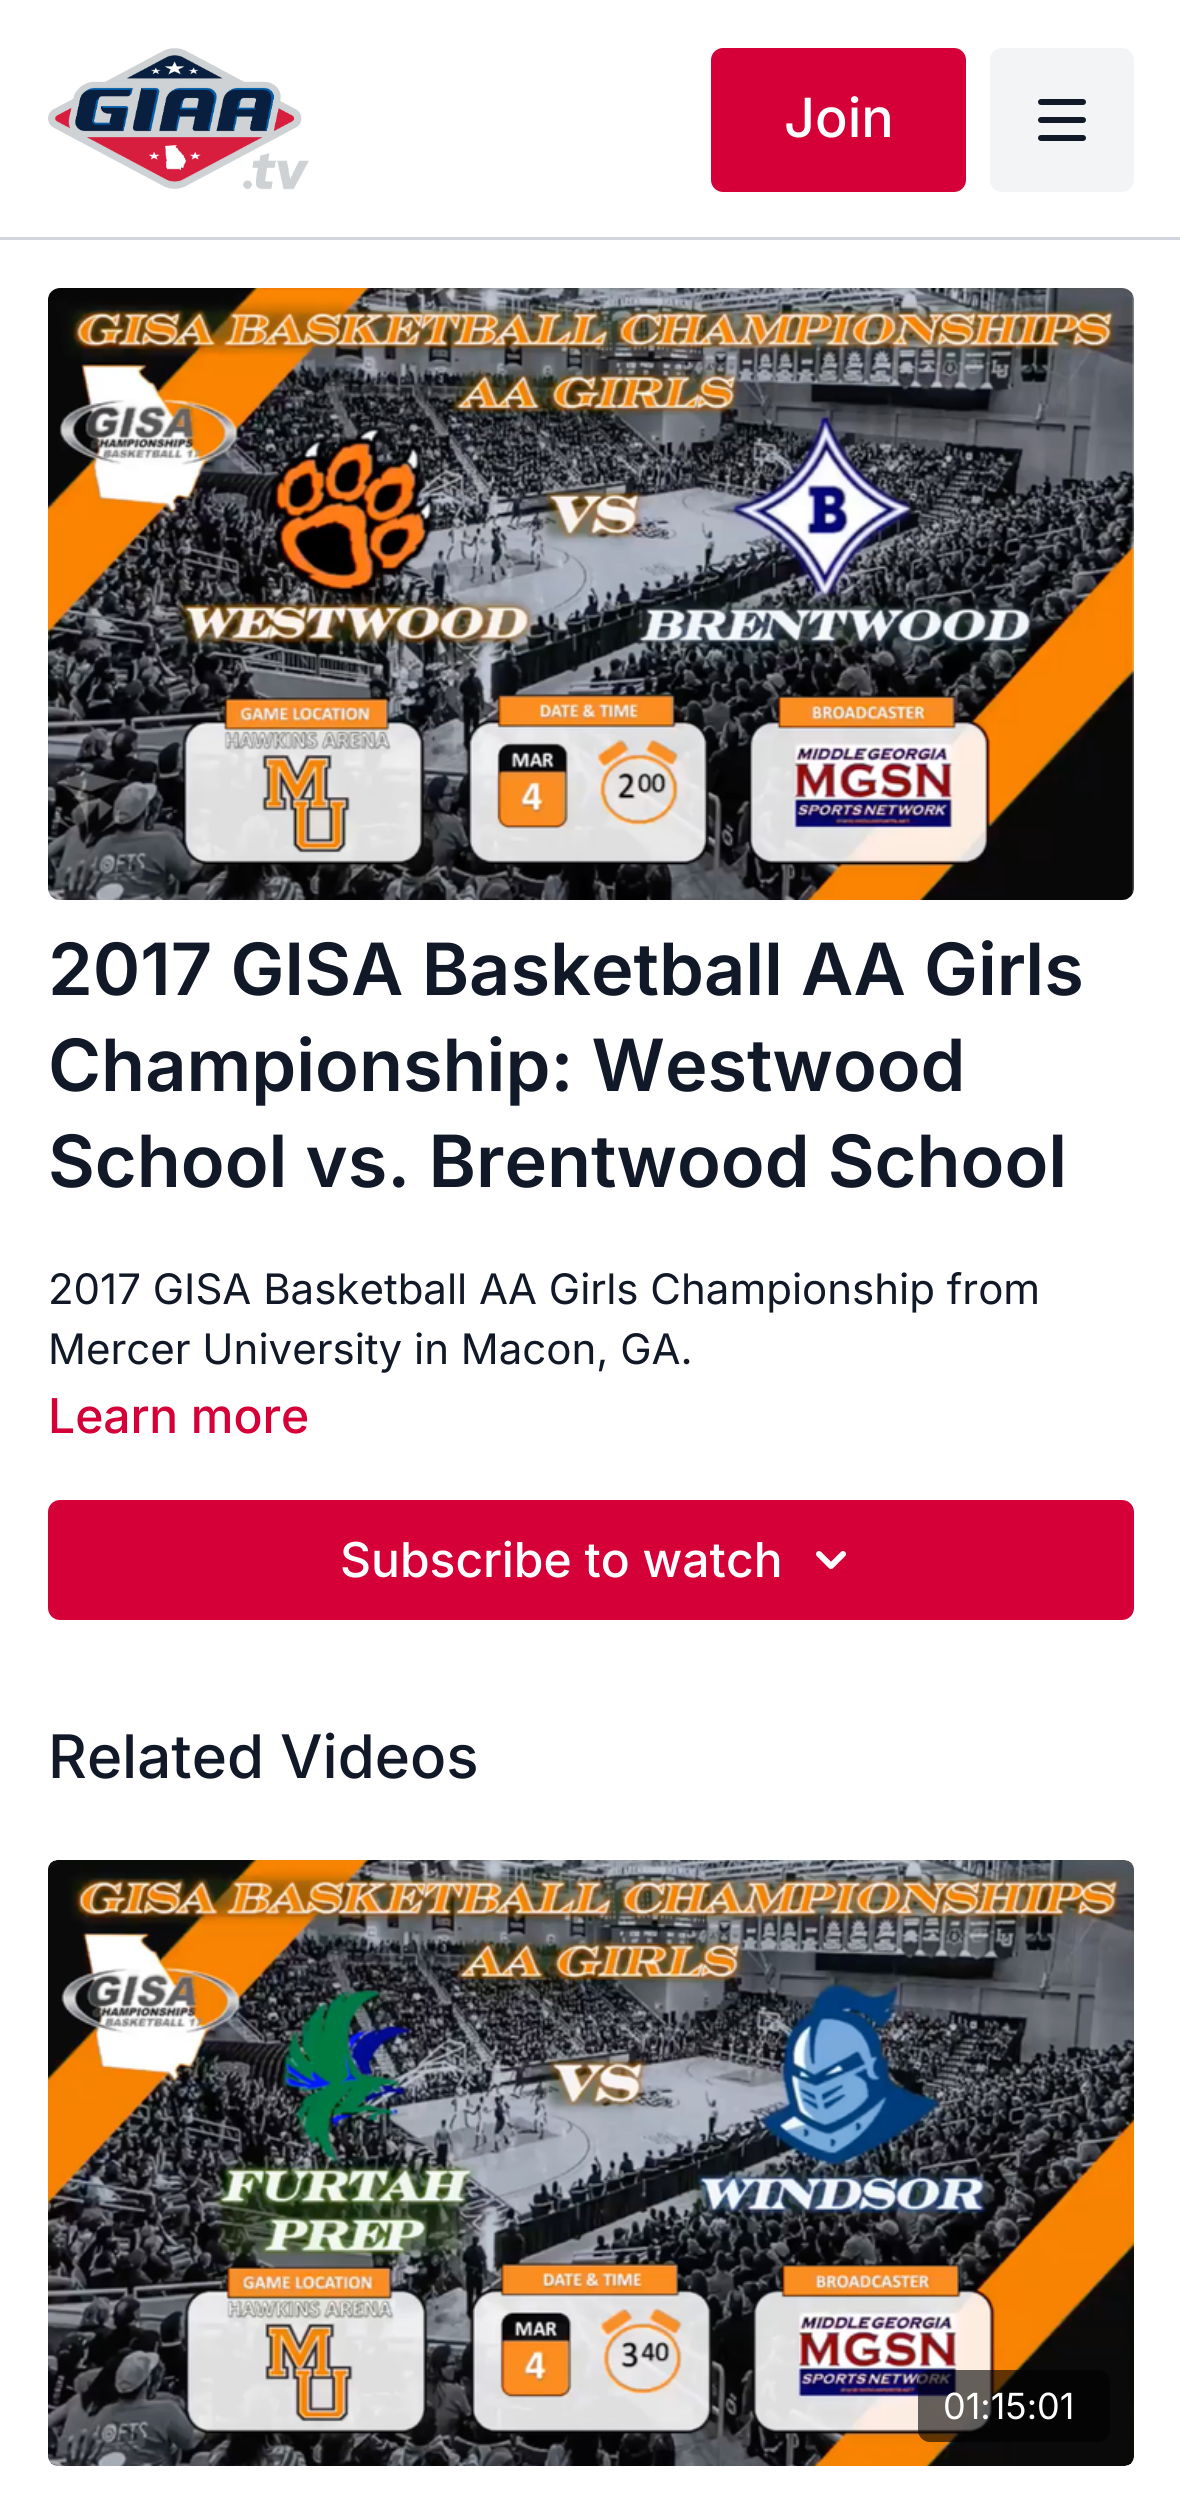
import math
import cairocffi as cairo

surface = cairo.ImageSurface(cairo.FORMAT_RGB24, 1180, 2501)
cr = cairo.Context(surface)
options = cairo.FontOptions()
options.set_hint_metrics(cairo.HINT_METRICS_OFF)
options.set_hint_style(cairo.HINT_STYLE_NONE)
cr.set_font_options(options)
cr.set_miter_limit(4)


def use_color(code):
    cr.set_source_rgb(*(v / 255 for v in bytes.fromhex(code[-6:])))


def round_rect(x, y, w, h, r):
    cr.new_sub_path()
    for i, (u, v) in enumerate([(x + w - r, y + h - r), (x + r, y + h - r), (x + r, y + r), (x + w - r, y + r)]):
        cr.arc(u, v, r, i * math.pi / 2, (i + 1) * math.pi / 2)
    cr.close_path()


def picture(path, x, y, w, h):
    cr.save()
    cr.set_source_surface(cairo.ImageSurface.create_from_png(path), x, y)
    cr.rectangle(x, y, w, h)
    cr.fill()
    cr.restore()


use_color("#ffffff")
cr.paint()
use_color("#d1d5db")
cr.rectangle(0, 237, 1180, 3)
cr.fill()
picture("img1.png", 48, 48, 261, 142)
use_color("#d50037")
round_rect(711, 48, 255, 144, 12)
cr.fill()
cr.select_font_face("Inter Medium")
cr.set_font_size(54)
use_color("#ffffff")
cr.move_to(784, 137)
cr.show_text("Join")
use_color("#f3f4f6")
round_rect(990, 48, 144, 144, 12)
cr.fill()
picture("img2.png", 1038, 99, 48, 42)
picture("img3.png", 48, 288, 1086, 612)
cr.select_font_face("Inter SemiBold")
cr.set_font_size(72)
use_color("#111827")
cr.move_to(48, 995)
cr.show_text("2017 GISA Basketball AA Girls")
cr.move_to(48, 1091)
cr.show_text("Championship: Westwood")
cr.move_to(48, 1187)
cr.show_text("School vs. Brentwood School")
cr.select_font_face("Inter")
cr.set_font_size(42)
cr.move_to(48, 1304)
cr.show_text("2017 GISA Basketball AA Girls Championship from")
cr.move_to(48, 1364)
cr.show_text("Mercer University in Macon, GA.")
cr.select_font_face("Inter Medium")
cr.set_font_size(48)
use_color("#d50037")
cr.move_to(48, 1433)
cr.show_text("Learn more")
round_rect(48, 1500, 1086, 120, 12)
cr.fill()
use_color("#ffffff")
cr.move_to(340, 1577)
cr.show_text("Subscribe to watch")
picture("img4.png", 816, 1551, 30, 18)
cr.set_font_size(60)
use_color("#111827")
cr.move_to(48, 1778)
cr.show_text("Related Videos")
picture("img5.png", 48, 1860, 1086, 606)
cr.set_source_rgba(0, 0, 0, 0.6)
round_rect(918, 2370, 192, 72, 12)
cr.fill()
cr.select_font_face("Inter")
cr.set_font_size(36)
use_color("#ffffff")
cr.move_to(943, 2419)
cr.show_text("01:15:01")
surface.write_to_png("result.png")
